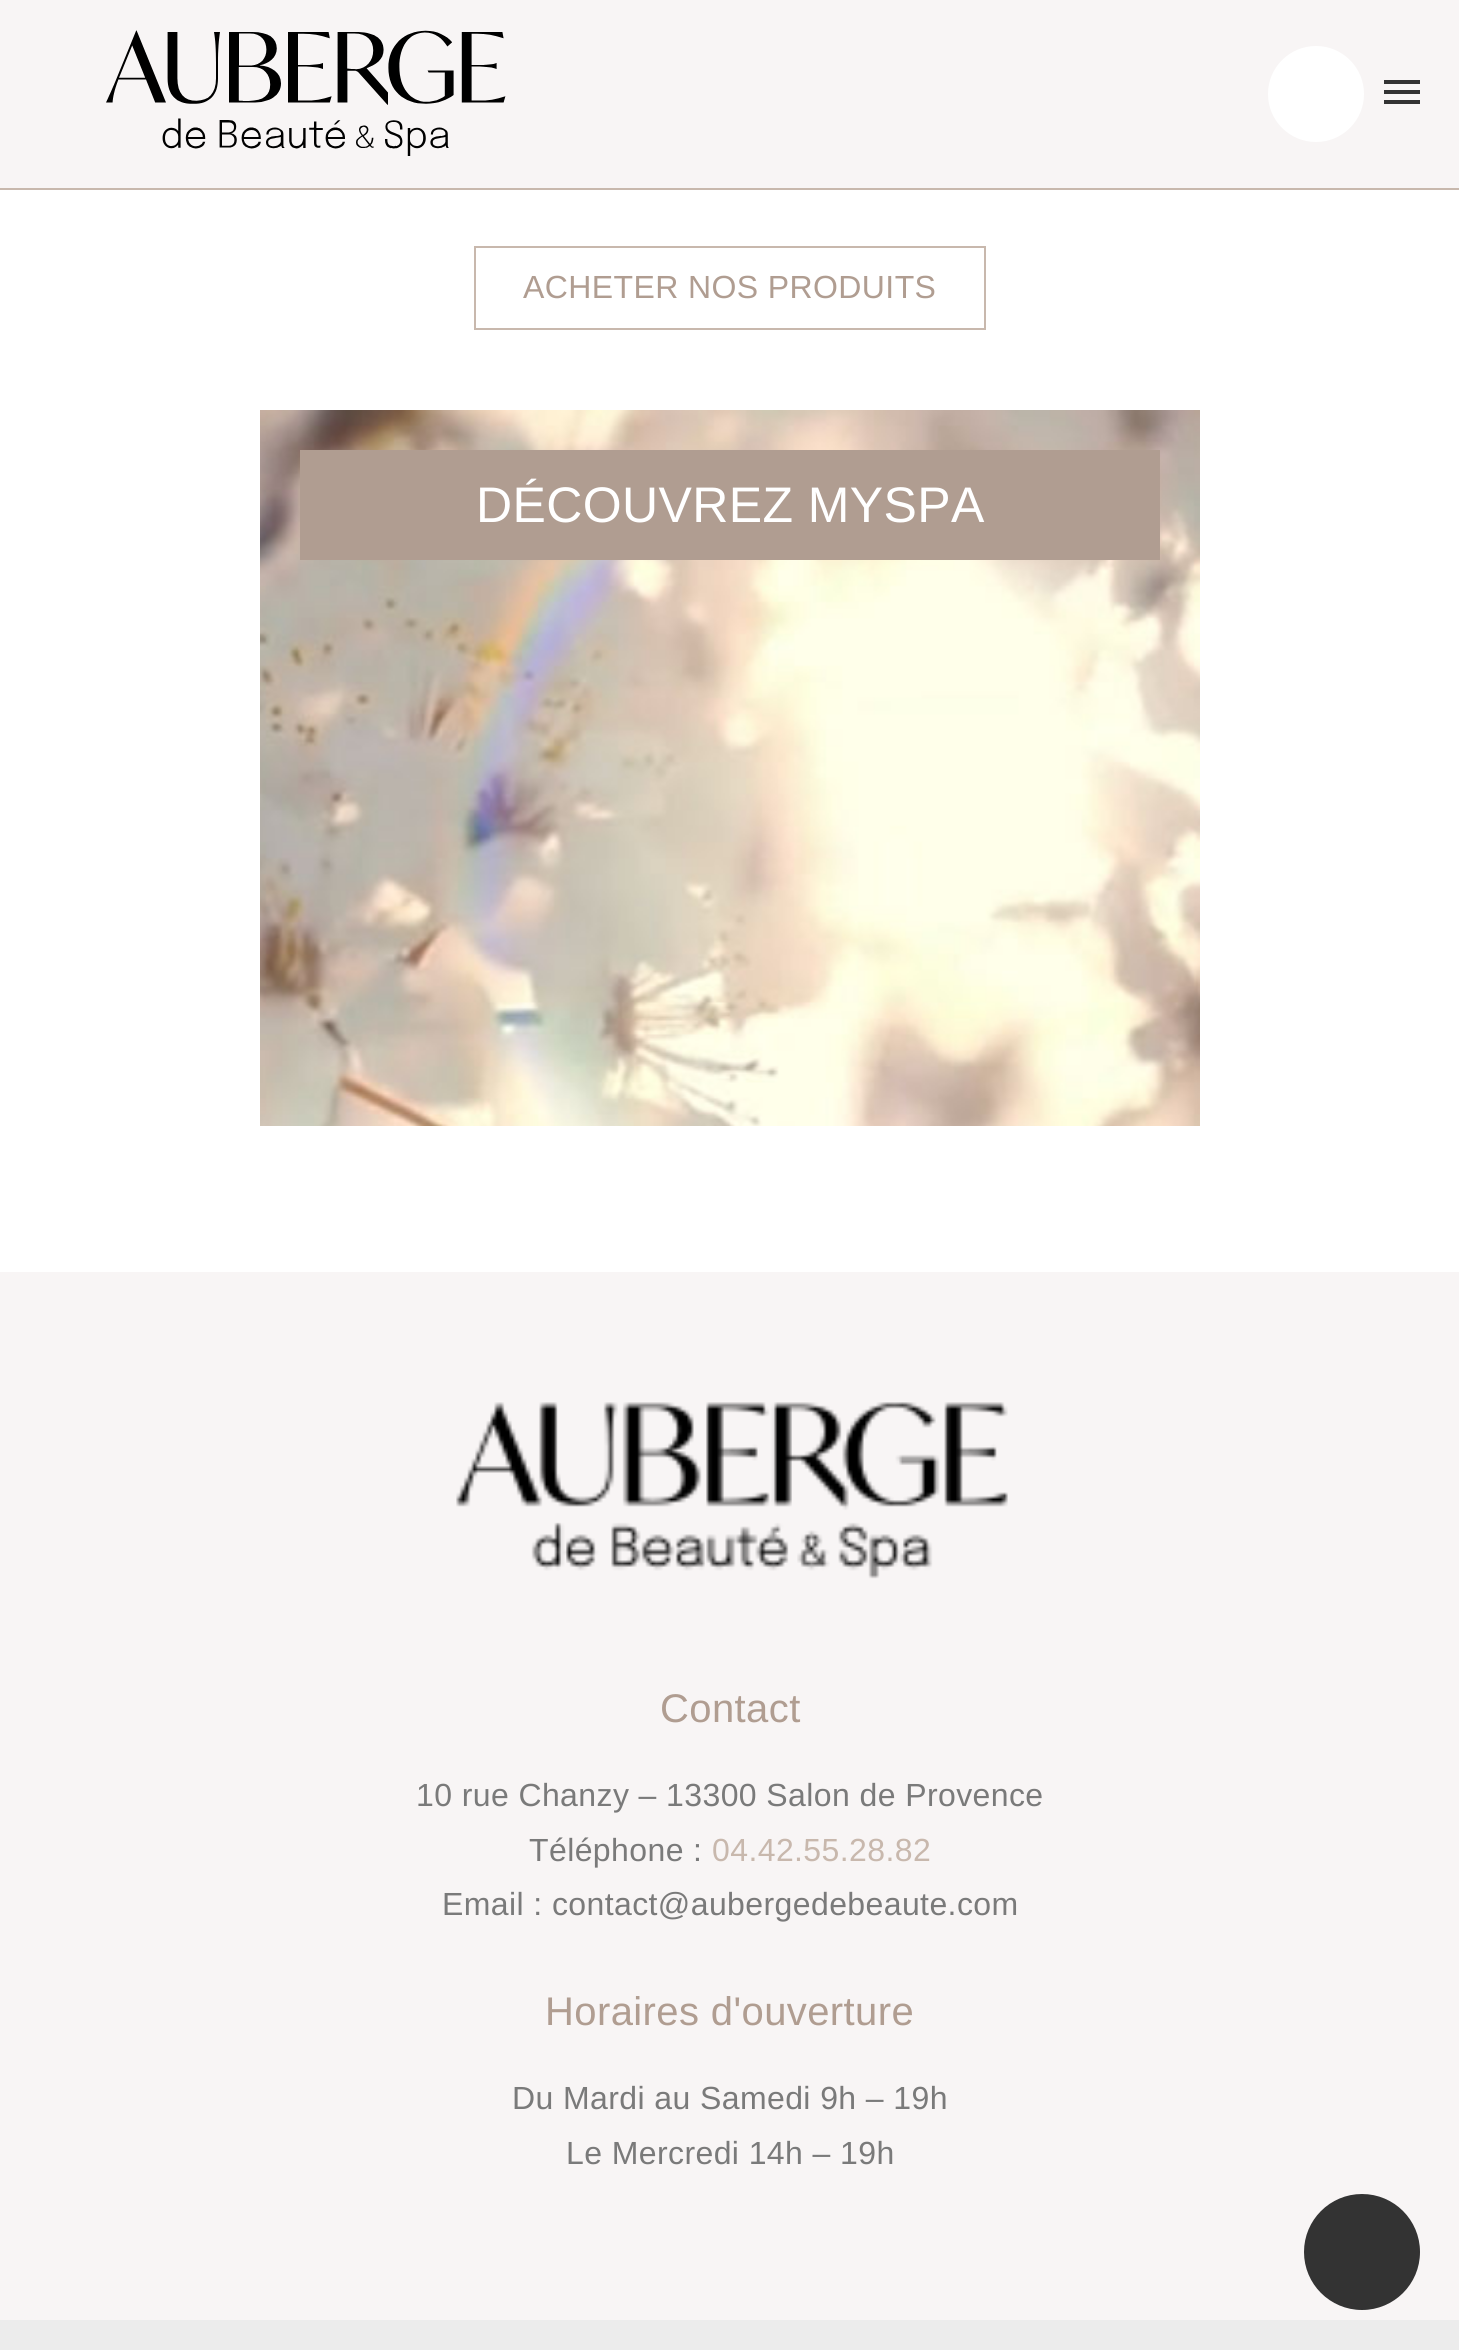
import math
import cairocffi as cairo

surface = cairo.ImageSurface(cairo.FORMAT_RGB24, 1459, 2350)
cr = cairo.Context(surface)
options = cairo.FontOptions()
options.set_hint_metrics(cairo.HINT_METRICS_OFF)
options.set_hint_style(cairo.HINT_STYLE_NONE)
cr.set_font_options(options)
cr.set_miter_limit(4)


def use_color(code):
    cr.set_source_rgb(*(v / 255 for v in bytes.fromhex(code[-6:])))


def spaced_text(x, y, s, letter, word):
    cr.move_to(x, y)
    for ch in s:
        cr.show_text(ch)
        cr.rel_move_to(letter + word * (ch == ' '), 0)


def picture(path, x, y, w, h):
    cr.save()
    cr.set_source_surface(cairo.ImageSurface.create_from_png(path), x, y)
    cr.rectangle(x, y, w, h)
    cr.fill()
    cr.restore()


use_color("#ffffff")
cr.paint()
use_color("#f8f5f5")
cr.rectangle(0, 0, 1459, 188)
cr.fill()
use_color("#c8b8ad")
cr.rectangle(0, 188, 1459, 2)
cr.fill()
picture("img1.png", 106, 30, 400, 126)
use_color("#ffffff")
cr.arc(1316, 94, 48, 0, 2 * math.pi)
cr.fill()
use_color("#333333")
cr.rectangle(1384, 80, 36, 4)
cr.fill()
cr.rectangle(1384, 90, 36, 4)
cr.fill()
cr.rectangle(1384, 100, 36, 4)
cr.fill()
use_color("#f8f5f5")
cr.rectangle(0, 1272, 1459, 1048)
cr.fill()
use_color("#333333")
cr.arc(1362, 2252, 58, 0, 2 * math.pi)
cr.fill()
cr.rectangle(475, 247, 510, 82)
use_color("#c8b8ad")
cr.stroke()
cr.select_font_face("Liberation Sans")
cr.set_font_size(32)
use_color("#b09d91")
spaced_text(523, 298, "ACHETER NOS PRODUITS", 0.4, 0)
picture("img2.png", 260, 410, 940, 716)
cr.rectangle(300, 450, 860, 110)
cr.fill()
cr.set_font_size(50)
use_color("#ffffff")
spaced_text(476, 522, "DÉCOUVREZ MYSPA", 0.4, 0)
picture("img3.png", 456, 1402, 552, 177)
cr.set_font_size(40)
use_color("#b09d91")
spaced_text(660, 1722, "Contact", 0.4, 0)
cr.set_font_size(32)
use_color("#7a7a7a")
spaced_text(416, 1806, "10 rue Chanzy – 13300 Salon de Provence", 0.4, 0)
spaced_text(529, 1861, "Téléphone :", 0.4, 0)
use_color("#c8b8ad")
spaced_text(712, 1861, "04.42.55.28.82", 0.4, 0)
use_color("#7a7a7a")
spaced_text(442, 1915, "Email : contact@aubergedebeaute.com", 0.4, 0)
cr.set_font_size(40)
use_color("#b09d91")
spaced_text(545, 2025, "Horaires d'ouverture", 0.4, 0)
cr.set_font_size(32)
use_color("#7a7a7a")
spaced_text(512, 2109, "Du Mardi au Samedi 9h – 19h", 0.4, 0)
spaced_text(566, 2164, "Le Mercredi 14h – 19h", 0.4, 0)
use_color("#ececec")
cr.rectangle(0, 2320, 1459, 30)
cr.fill()
surface.write_to_png("result.png")
